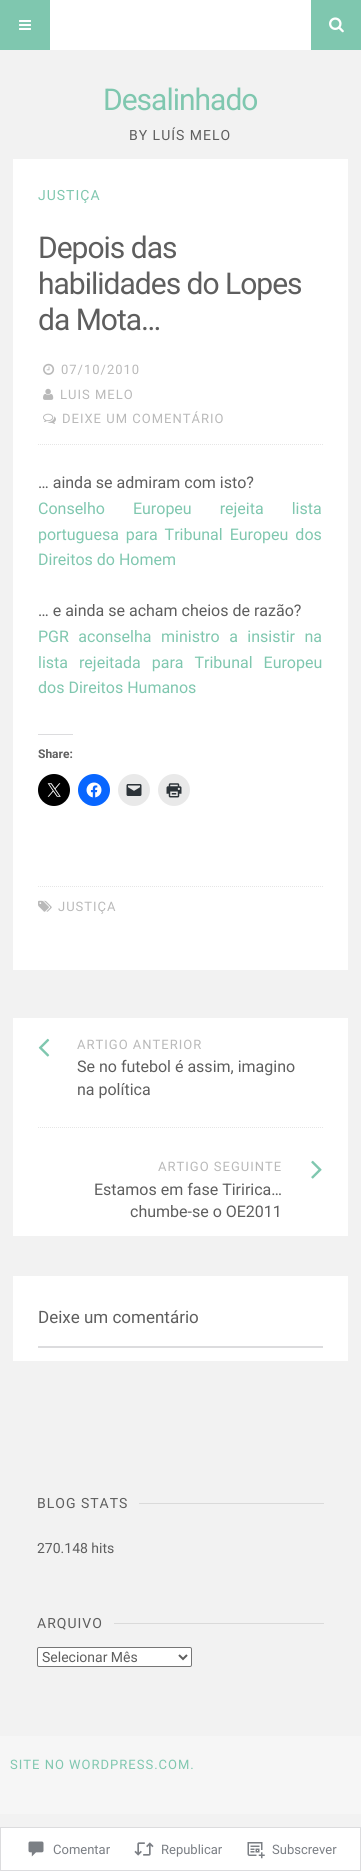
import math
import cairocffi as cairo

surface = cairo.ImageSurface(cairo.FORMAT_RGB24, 361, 1871)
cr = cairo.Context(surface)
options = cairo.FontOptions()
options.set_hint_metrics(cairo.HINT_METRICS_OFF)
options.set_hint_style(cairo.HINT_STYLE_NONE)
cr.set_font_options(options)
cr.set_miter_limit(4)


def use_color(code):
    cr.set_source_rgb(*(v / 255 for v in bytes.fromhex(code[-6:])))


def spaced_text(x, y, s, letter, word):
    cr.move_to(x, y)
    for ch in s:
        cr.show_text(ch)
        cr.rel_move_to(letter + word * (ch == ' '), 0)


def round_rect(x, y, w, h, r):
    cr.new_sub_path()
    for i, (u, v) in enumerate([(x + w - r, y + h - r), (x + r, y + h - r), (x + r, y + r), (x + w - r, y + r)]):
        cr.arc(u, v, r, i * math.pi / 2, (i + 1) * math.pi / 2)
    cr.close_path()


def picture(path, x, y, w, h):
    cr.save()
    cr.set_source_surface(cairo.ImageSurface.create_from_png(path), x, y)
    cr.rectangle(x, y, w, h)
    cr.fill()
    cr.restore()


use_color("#f2f2f2")
cr.paint()
use_color("#ffffff")
cr.rectangle(50, 0, 261, 50)
cr.fill()
use_color("#7fc7af")
cr.rectangle(0, 0, 50, 50)
cr.fill()
picture("img1.png", 19, 20, 12, 10)
cr.rectangle(311, 0, 50, 50)
cr.fill()
picture("img2.png", 329, 17, 15, 16)
cr.select_font_face("Roboto")
cr.set_font_size(30)
spaced_text(103, 110, "Desalinhado", -1, 0)
cr.set_font_size(14)
use_color("#5e5e5e")
spaced_text(129, 140, "BY LUÍS MELO", 1, 0)
use_color("#ffffff")
cr.rectangle(13, 159, 335, 811)
cr.fill()
use_color("#7fc7af")
spaced_text(38, 200, "JUSTIÇA", 1, 0)
cr.set_font_size(30)
use_color("#5e5e5e")
spaced_text(38, 258, "Depois das", -1, 0)
spaced_text(38, 294, "habilidades do Lopes", -1, 0)
spaced_text(38, 330, "da Mota…", -1, 0)
cr.new_path()
cr.move_to(38, 444.5)
cr.line_to(323, 444.5)
use_color("#e6e6e6")
cr.set_line_width(1)
cr.set_dash([1, 1])
cr.stroke()
picture("img3.png", 43, 363, 12, 12)
cr.set_font_size(13)
use_color("#b9b9b9")
spaced_text(61, 374, "07/10/2010", 1, 0)
picture("img4.png", 43, 388, 11, 12)
spaced_text(60, 399, "LUIS MELO", 1, 0)
picture("img5.png", 43, 413, 13, 11)
spaced_text(62, 423, "DEIXE UM COMENTÁRIO", 1, 0)
cr.set_font_size(16)
use_color("#5e5e5e")
cr.move_to(38, 488)
cr.show_text("… ainda se admiram com isto?")
use_color("#7fc7af")
spaced_text(38, 514, "Conselho Europeu rejeita lista", 0, 24)
spaced_text(38, 540, "portuguesa para Tribunal Europeu dos", 0, 3)
cr.move_to(38, 565)
cr.show_text("Direitos do Homem")
use_color("#5e5e5e")
cr.move_to(38, 616)
cr.show_text("… e ainda se acham cheios de razão?")
use_color("#7fc7af")
spaced_text(38, 642, "PGR aconselha ministro a insistir na", 0, 5.5)
spaced_text(38, 668, "lista rejeitada para Tribunal Europeu", 0, 7)
cr.move_to(38, 693)
cr.show_text("dos Direitos Humanos")
use_color("#dcdcde")
cr.rectangle(38, 734, 35, 1)
cr.fill()
cr.select_font_face("Roboto", cairo.FONT_SLANT_NORMAL, cairo.FONT_WEIGHT_BOLD)
cr.set_font_size(12)
use_color("#5e5e5e")
cr.move_to(38, 758)
cr.show_text("Share:")
use_color("#000000")
cr.new_path()
cr.arc(54, 790, 16, 0, 2 * math.pi)
cr.fill()
picture("img6.png", 47, 783, 14, 14)
use_color("#0866ff")
cr.arc(94, 790, 16, 0, 2 * math.pi)
cr.fill()
picture("img7.png", 86, 782, 16, 16)
use_color("#e9e9e9")
cr.arc(134, 790, 16, 0, 2 * math.pi)
cr.fill()
picture("img8.png", 126, 784, 16, 12)
cr.arc(174, 790, 16, 0, 2 * math.pi)
cr.fill()
picture("img9.png", 166, 783, 16, 15)
cr.new_path()
cr.move_to(38, 886.5)
cr.line_to(323, 886.5)
use_color("#e6e6e6")
cr.stroke()
picture("img10.png", 38, 900, 14, 12)
cr.select_font_face("Roboto")
cr.set_font_size(13)
use_color("#b9b9b9")
spaced_text(58, 911, "JUSTIÇA", 1, 0)
use_color("#ffffff")
cr.rectangle(13, 1018, 335, 218)
cr.fill()
picture("img11.png", 38, 1038, 12, 19)
use_color("#b9b9b9")
spaced_text(77, 1049, "ARTIGO ANTERIOR", 1, 0)
cr.set_font_size(16)
use_color("#5e5e5e")
cr.move_to(77, 1072)
cr.show_text("Se no futebol é assim, imagino")
cr.move_to(77, 1095)
cr.show_text("na política")
cr.new_path()
cr.move_to(38, 1127.5)
cr.line_to(323, 1127.5)
use_color("#e6e6e6")
cr.stroke()
cr.set_font_size(13)
use_color("#b9b9b9")
spaced_text(158, 1171, "ARTIGO SEGUINTE", 1, 0)
cr.set_font_size(16)
use_color("#5e5e5e")
cr.move_to(94, 1195)
cr.show_text("Estamos em fase Tiririca…")
cr.move_to(130, 1217)
cr.show_text("chumbe-se o OE2011")
picture("img12.png", 311, 1160, 11, 19)
use_color("#ffffff")
cr.rectangle(13, 1276, 335, 85)
cr.fill()
cr.set_font_size(17)
use_color("#5e5e5e")
cr.move_to(38, 1323)
cr.show_text("Deixe um comentário")
use_color("#dcdcde")
cr.rectangle(38, 1346, 285, 2)
cr.fill()
cr.set_font_size(14)
use_color("#5e5e5e")
spaced_text(37, 1508, "BLOG STATS", 1, 0)
use_color("#dadada")
cr.rectangle(139, 1503, 185, 1)
cr.fill()
use_color("#5e5e5e")
cr.move_to(37, 1553)
cr.show_text("270.148 hits")
spaced_text(37, 1628, "ARQUIVO", 1, 0)
use_color("#dadada")
cr.rectangle(114, 1623, 210, 1)
cr.fill()
use_color("#ffffff")
round_rect(37.5, 1647.5, 154, 19, 1.5)
cr.fill_preserve()
use_color("#767676")
cr.set_dash([])
cr.stroke()
cr.new_path()
cr.move_to(179, 1655)
cr.line_to(183, 1659)
cr.line_to(187, 1655)
use_color("#5e5e5e")
cr.set_line_width(2)
cr.stroke()
cr.move_to(42, 1662)
cr.show_text("Selecionar Mês")
use_color("#f6f6f6")
cr.rectangle(0, 1736, 361, 78)
cr.fill()
cr.set_font_size(13)
use_color("#7fc7af")
spaced_text(10, 1769, "SITE NO WORDPRESS.COM.", 1, 0)
use_color("#ffffff")
cr.rectangle(0.5, 1827.5, 360, 43)
cr.fill_preserve()
use_color("#dcdcde")
cr.set_line_width(1)
cr.stroke()
picture("img13.png", 28, 1841, 16, 16)
use_color("#7a7e84")
cr.move_to(53, 1854)
cr.show_text("Comentar")
picture("img14.png", 134, 1842, 20, 14)
cr.move_to(161, 1854)
cr.show_text("Republicar")
picture("img15.png", 247, 1842, 18, 17)
cr.move_to(272, 1854)
cr.show_text("Subscrever")
surface.write_to_png("result.png")
